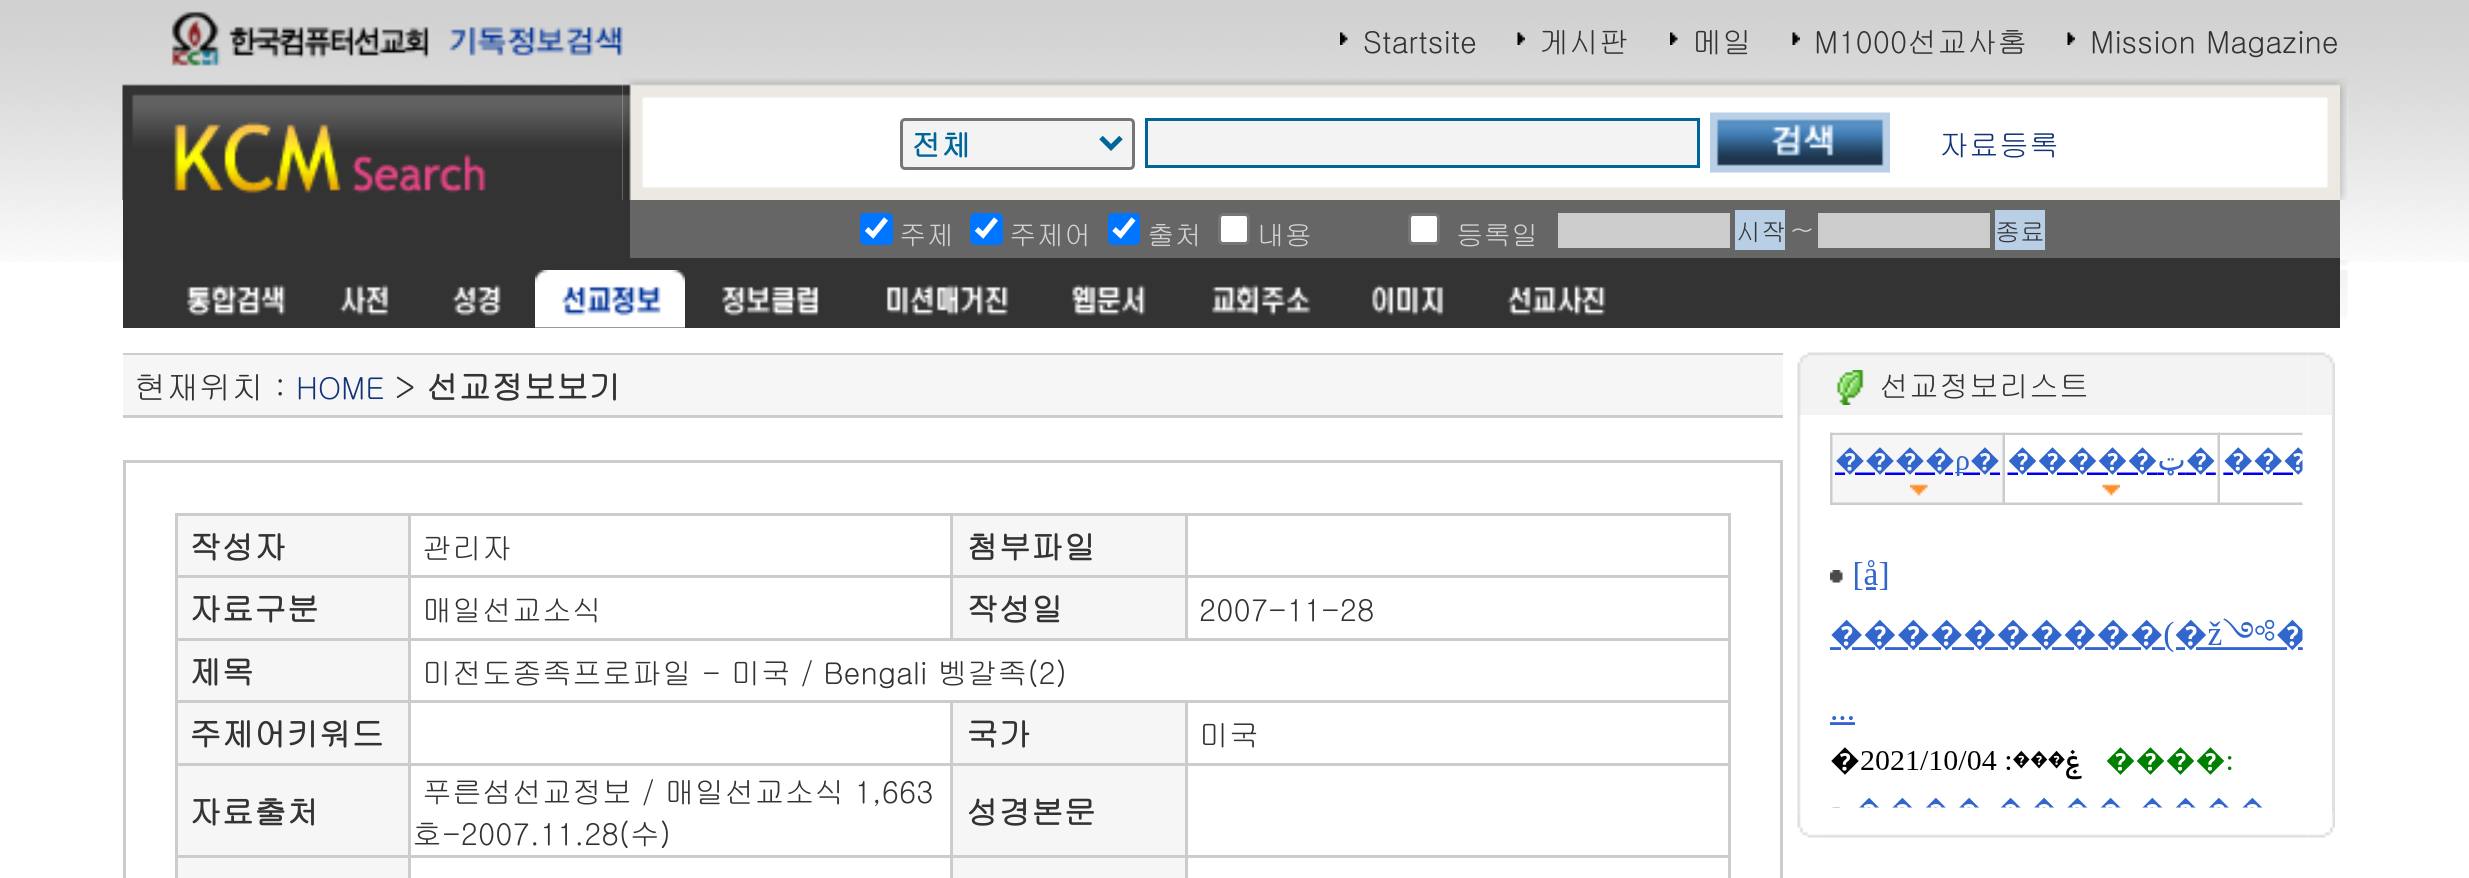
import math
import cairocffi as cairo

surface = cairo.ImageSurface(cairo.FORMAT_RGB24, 2469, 878)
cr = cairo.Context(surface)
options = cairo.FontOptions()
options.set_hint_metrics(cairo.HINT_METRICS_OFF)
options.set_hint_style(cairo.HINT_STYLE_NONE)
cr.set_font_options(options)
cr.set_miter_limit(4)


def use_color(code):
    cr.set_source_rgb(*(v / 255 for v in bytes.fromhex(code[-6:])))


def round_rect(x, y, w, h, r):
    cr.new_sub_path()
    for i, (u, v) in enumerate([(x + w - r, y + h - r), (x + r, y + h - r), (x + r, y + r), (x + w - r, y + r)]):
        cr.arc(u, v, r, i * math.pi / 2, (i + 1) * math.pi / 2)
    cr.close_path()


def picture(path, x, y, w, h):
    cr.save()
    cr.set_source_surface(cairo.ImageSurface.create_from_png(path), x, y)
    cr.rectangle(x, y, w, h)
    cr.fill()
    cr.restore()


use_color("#ffffff")
cr.paint()
picture("img1.png", 0, 0, 2469, 262)
picture("img2.png", 171, 11, 452, 55)
picture("img3.png", 1340, 32, 8, 13)
cr.select_font_face("Gulim")
cr.set_font_size(30)
use_color("#333333")
cr.move_to(1363, 53)
cr.show_text("Startsite")
picture("img4.png", 1517, 32, 8, 13)
cr.move_to(1539, 53)
cr.show_text("게시판")
picture("img5.png", 1670, 32, 8, 13)
cr.move_to(1692, 53)
cr.show_text("메일")
picture("img6.png", 1792, 32, 8, 13)
cr.move_to(1814, 53)
cr.show_text("M1000선교사홈")
picture("img7.png", 2067, 32, 8, 13)
cr.move_to(2090, 53)
cr.show_text("Mission Magazine")
picture("img9.png", 622, 78, 1726, 122)
picture("img8.png", 122, 82, 501, 118)
picture("img10.png", 622, 79, 22, 121)
use_color("#f3f3f3")
round_rect(901.5, 119.5, 232, 49, 3.5)
cr.fill_preserve()
use_color("#767676")
cr.set_line_width(3)
cr.stroke()
cr.new_path()
cr.move_to(1101, 137.5)
cr.line_to(1111, 147.5)
cr.line_to(1121, 137.5)
use_color("#006699")
cr.set_line_width(5)
cr.stroke()
cr.select_font_face("Gulim", cairo.FONT_SLANT_NORMAL, cairo.FONT_WEIGHT_BOLD)
cr.move_to(911, 156)
cr.show_text("전체")
use_color("#f3f3f3")
cr.rectangle(1146.5, 119.5, 552, 47)
cr.fill_preserve()
use_color("#006699")
cr.set_line_width(3)
cr.stroke()
picture("img11.png", 1710, 112, 180, 61)
cr.select_font_face("Gulim")
use_color("#113377")
cr.move_to(1939, 156)
cr.show_text("자료등록")
picture("img12.png", 2327, 82, 13, 106)
picture("img13.png", 2340, 79, 8, 121)
use_color("#333333")
cr.rectangle(123, 200, 507, 58)
cr.fill()
use_color("#666666")
cr.rectangle(630, 200, 1710, 58)
cr.fill()
use_color("#0075ff")
round_rect(860, 213, 33, 32, 5)
cr.fill()
cr.new_path()
cr.move_to(866.5, 229)
cr.line_to(873, 235)
cr.line_to(886, 219)
use_color("#ffffff")
cr.set_line_width(5.2)
cr.stroke()
cr.set_font_size(27.5)
use_color("#d2d2d2")
cr.move_to(899, 245)
cr.show_text("주제")
use_color("#0075ff")
round_rect(970, 213, 33, 32, 5)
cr.fill()
cr.new_path()
cr.move_to(976.5, 229)
cr.line_to(983, 235)
cr.line_to(996, 219)
use_color("#ffffff")
cr.stroke()
use_color("#d2d2d2")
cr.move_to(1009, 245)
cr.show_text("주제어")
use_color("#0075ff")
round_rect(1108, 213, 32, 32, 5)
cr.fill()
cr.new_path()
cr.move_to(1114, 229)
cr.line_to(1120.5, 235)
cr.line_to(1133.5, 219)
use_color("#ffffff")
cr.stroke()
use_color("#d2d2d2")
cr.move_to(1147, 245)
cr.show_text("출처")
use_color("#ffffff")
round_rect(1219.5, 214.5, 29, 29, 3.5)
cr.fill_preserve()
use_color("#767676")
cr.set_line_width(3)
cr.stroke()
use_color("#d2d2d2")
cr.move_to(1257, 245)
cr.show_text("내용")
use_color("#ffffff")
round_rect(1409.5, 214.5, 29, 29, 3.5)
cr.fill_preserve()
use_color("#767676")
cr.stroke()
use_color("#d2d2d2")
cr.move_to(1456, 245)
cr.show_text("등록일")
use_color("#cccccc")
cr.rectangle(1558, 213, 172, 35)
cr.fill()
use_color("#b8cfe5")
cr.rectangle(1735, 210, 50, 40)
cr.fill()
cr.set_font_size(25)
use_color("#333333")
cr.move_to(1736, 241)
cr.show_text("시작")
cr.set_font_size(27.5)
use_color("#d2d2d2")
cr.move_to(1791, 240)
cr.show_text("~")
use_color("#cccccc")
cr.rectangle(1818, 213, 172, 35)
cr.fill()
use_color("#b8cfe5")
cr.rectangle(1995, 210, 50, 40)
cr.fill()
cr.set_font_size(25)
use_color("#333333")
cr.move_to(1995, 241)
cr.show_text("종료")
cr.rectangle(123, 258, 2217, 70)
cr.fill()
picture("img14.png", 2340, 260, 8, 6)
picture("img15.png", 186, 284, 100, 32)
picture("img16.png", 339, 284, 50, 32)
picture("img17.png", 452, 284, 49, 32)
picture("img18.png", 535, 270, 150, 58)
picture("img19.png", 721, 286, 98, 30)
picture("img20.png", 886, 284, 123, 32)
picture("img21.png", 1071, 284, 75, 32)
picture("img22.png", 1211, 284, 100, 32)
picture("img23.png", 1371, 284, 73, 32)
picture("img24.png", 1507, 284, 99, 32)
picture("img25.png", 2340, 270, 8, 49)
use_color("#cccccc")
cr.rectangle(123, 353, 1660, 2)
cr.fill()
use_color("#f6f6f6")
cr.rectangle(123, 355, 1660, 60)
cr.fill()
cr.set_font_size(32.5)
use_color("#333333")
cr.move_to(134, 399)
cr.show_text("현재위치 :")
cr.set_font_size(30)
use_color("#113377")
cr.move_to(296, 399)
cr.show_text("HOME")
cr.set_font_size(32.5)
use_color("#333333")
cr.move_to(395, 399)
cr.show_text(">")
cr.select_font_face("Gulim", cairo.FONT_SLANT_NORMAL, cairo.FONT_WEIGHT_BOLD)
cr.move_to(426, 399)
cr.show_text("선교정보보기")
use_color("#cccccc")
cr.rectangle(123, 415, 1660, 3)
cr.fill()
cr.rectangle(124.5, 461.5, 1657, 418)
cr.stroke()
cr.rectangle(175, 513, 1555, 3)
cr.fill()
cr.rectangle(1728, 513, 3, 365)
cr.fill()
cr.rectangle(175, 513, 3, 365)
cr.fill()
use_color("#f6f6f6")
cr.rectangle(178, 516, 230, 59)
cr.fill()
use_color("#333333")
cr.move_to(189, 559)
cr.show_text("작성자")
use_color("#cccccc")
cr.rectangle(1185, 575, 545, 3)
cr.fill()
cr.rectangle(408, 638, 1322, 3)
cr.fill()
cr.rectangle(1185, 575, 3, 65)
cr.fill()
cr.rectangle(950, 575, 238, 3)
cr.fill()
cr.rectangle(950, 575, 3, 65)
cr.fill()
cr.rectangle(408, 575, 545, 3)
cr.fill()
cr.rectangle(1185, 700, 545, 3)
cr.fill()
cr.rectangle(1185, 763, 545, 3)
cr.fill()
cr.rectangle(1185, 855, 545, 3)
cr.fill()
cr.rectangle(1185, 855, 3, 23)
cr.fill()
cr.rectangle(950, 855, 238, 3)
cr.fill()
cr.rectangle(1185, 763, 3, 95)
cr.fill()
cr.rectangle(950, 763, 238, 3)
cr.fill()
cr.rectangle(1185, 700, 3, 65)
cr.fill()
cr.rectangle(950, 700, 238, 3)
cr.fill()
cr.rectangle(950, 855, 3, 23)
cr.fill()
cr.rectangle(408, 855, 545, 3)
cr.fill()
cr.rectangle(950, 763, 3, 95)
cr.fill()
cr.rectangle(408, 763, 545, 3)
cr.fill()
cr.rectangle(950, 700, 3, 65)
cr.fill()
cr.rectangle(408, 700, 545, 3)
cr.fill()
cr.rectangle(408, 855, 3, 23)
cr.fill()
cr.rectangle(175, 855, 235, 3)
cr.fill()
cr.rectangle(408, 763, 3, 95)
cr.fill()
cr.rectangle(175, 763, 235, 3)
cr.fill()
cr.rectangle(408, 700, 3, 65)
cr.fill()
cr.rectangle(175, 700, 235, 3)
cr.fill()
cr.rectangle(408, 638, 3, 65)
cr.fill()
cr.rectangle(175, 638, 235, 3)
cr.fill()
cr.rectangle(408, 575, 3, 65)
cr.fill()
cr.rectangle(175, 575, 235, 3)
cr.fill()
cr.rectangle(408, 513, 3, 65)
cr.fill()
cr.select_font_face("Gulim")
cr.set_font_size(30)
use_color("#333333")
cr.move_to(422, 559)
cr.show_text("관리자")
use_color("#f6f6f6")
cr.rectangle(953, 516, 232, 59)
cr.fill()
use_color("#cccccc")
cr.rectangle(950, 513, 3, 65)
cr.fill()
cr.select_font_face("Gulim", cairo.FONT_SLANT_NORMAL, cairo.FONT_WEIGHT_BOLD)
cr.set_font_size(32.5)
use_color("#333333")
cr.move_to(966, 559)
cr.show_text("첨부파일")
use_color("#cccccc")
cr.rectangle(1185, 513, 3, 65)
cr.fill()
use_color("#f6f6f6")
cr.rectangle(178, 578, 230, 60)
cr.fill()
use_color("#333333")
cr.move_to(189, 621)
cr.show_text("자료구분")
cr.select_font_face("Gulim")
cr.set_font_size(30)
cr.move_to(422, 621)
cr.show_text("매일선교소식")
use_color("#f6f6f6")
cr.rectangle(953, 578, 232, 60)
cr.fill()
cr.select_font_face("Gulim", cairo.FONT_SLANT_NORMAL, cairo.FONT_WEIGHT_BOLD)
cr.set_font_size(32.5)
use_color("#333333")
cr.move_to(966, 621)
cr.show_text("작성일")
cr.select_font_face("Gulim")
cr.set_font_size(30)
cr.move_to(1199, 621)
cr.show_text("2007-11-28")
use_color("#f6f6f6")
cr.rectangle(178, 641, 230, 59)
cr.fill()
cr.select_font_face("Gulim", cairo.FONT_SLANT_NORMAL, cairo.FONT_WEIGHT_BOLD)
cr.set_font_size(32.5)
use_color("#333333")
cr.move_to(189, 684)
cr.show_text("제목")
cr.select_font_face("Gulim")
cr.set_font_size(30)
cr.move_to(422, 684)
cr.show_text("미전도종족프로파일 - 미국 / Bengali 벵갈족(2)")
use_color("#f6f6f6")
cr.rectangle(178, 703, 230, 60)
cr.fill()
cr.select_font_face("Gulim", cairo.FONT_SLANT_NORMAL, cairo.FONT_WEIGHT_BOLD)
cr.set_font_size(32.5)
use_color("#333333")
cr.move_to(189, 746)
cr.show_text("주제어키워드")
use_color("#f6f6f6")
cr.rectangle(953, 703, 232, 60)
cr.fill()
use_color("#333333")
cr.move_to(966, 746)
cr.show_text("국가")
cr.select_font_face("Gulim")
cr.set_font_size(30)
cr.move_to(1199, 746)
cr.show_text("미국")
use_color("#f6f6f6")
cr.rectangle(178, 766, 230, 89)
cr.fill()
cr.select_font_face("Gulim", cairo.FONT_SLANT_NORMAL, cairo.FONT_WEIGHT_BOLD)
cr.set_font_size(32.5)
use_color("#333333")
cr.move_to(189, 824)
cr.show_text("자료출처")
cr.select_font_face("Gulim")
cr.set_font_size(30)
cr.move_to(422, 803)
cr.show_text("푸른섬선교정보 / 매일선교소식 1,663")
cr.move_to(412, 845)
cr.show_text("호-2007.11.28(수)")
use_color("#f6f6f6")
cr.rectangle(953, 766, 232, 89)
cr.fill()
cr.select_font_face("Gulim", cairo.FONT_SLANT_NORMAL, cairo.FONT_WEIGHT_BOLD)
cr.set_font_size(32.5)
use_color("#333333")
cr.move_to(966, 824)
cr.show_text("성경본문")
use_color("#f6f6f6")
cr.rectangle(178, 858, 230, 20)
cr.fill()
cr.rectangle(953, 858, 232, 20)
cr.fill()
picture("img26.png", 1797, 352, 28, 63)
picture("img27.png", 1825, 352, 483, 63)
picture("img28.png", 1836, 370, 28, 35)
cr.select_font_face("Gulim")
cr.set_font_size(30)
use_color("#333333")
cr.move_to(1879, 397)
cr.show_text("선교정보리스트")
picture("img29.png", 2307, 352, 28, 63)
picture("img30.png", 1797, 415, 4, 398)
picture("img31.png", 1830, 432, 473, 376)
use_color("#e0e0e0")
cr.rectangle(2332, 415, 3, 398)
cr.fill()
picture("img32.png", 1797, 812, 28, 26)
picture("img33.png", 1825, 834, 483, 4)
picture("img34.png", 2307, 812, 28, 26)
surface.write_to_png("result.png")
